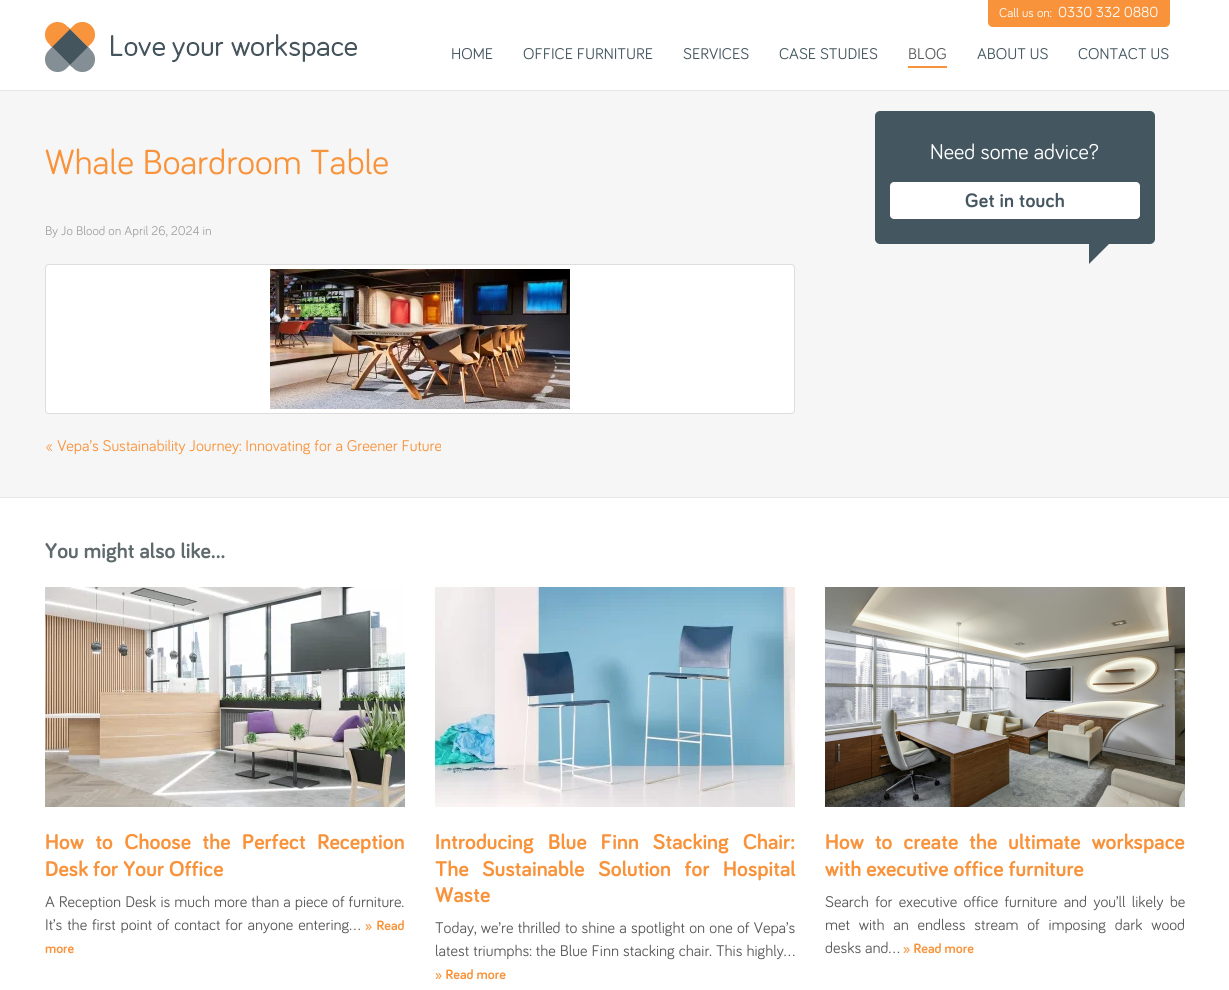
import math
import cairocffi as cairo

surface = cairo.ImageSurface(cairo.FORMAT_RGB24, 1229, 990)
cr = cairo.Context(surface)
options = cairo.FontOptions()
options.set_hint_metrics(cairo.HINT_METRICS_OFF)
options.set_hint_style(cairo.HINT_STYLE_NONE)
cr.set_font_options(options)
cr.set_miter_limit(4)


def use_color(code):
    cr.set_source_rgb(*(v / 255 for v in bytes.fromhex(code[-6:])))


def spaced_text(x, y, s, letter, word):
    cr.move_to(x, y)
    for ch in s:
        cr.show_text(ch)
        cr.rel_move_to(letter + word * (ch == ' '), 0)


def round_rect(x, y, w, h, r):
    cr.new_sub_path()
    for i, (u, v) in enumerate([(x + w - r, y + h - r), (x + r, y + h - r), (x + r, y + r), (x + w - r, y + r)]):
        cr.arc(u, v, r, i * math.pi / 2, (i + 1) * math.pi / 2)
    cr.close_path()


def picture(path, x, y, w, h):
    cr.save()
    cr.set_source_surface(cairo.ImageSurface.create_from_png(path), x, y)
    cr.rectangle(x, y, w, h)
    cr.fill()
    cr.restore()


use_color("#f6f6f6")
cr.paint()
use_color("#ffffff")
cr.rectangle(0, 0, 1229, 90)
cr.fill()
use_color("#e7e7e7")
cr.rectangle(0, 90, 1229, 1)
cr.fill()
picture("img1.png", 45, 22, 312, 50)
use_color("#f8933b")
cr.new_path()
cr.move_to(988, 0)
cr.line_to(1170, 0)
cr.line_to(1170, 22)
cr.curve_to(1170, 25, 1168, 27, 1165, 27)
cr.line_to(993, 27)
cr.curve_to(990, 27, 988, 25, 988, 22)
cr.close_path()
cr.fill()
cr.select_font_face("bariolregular")
cr.set_font_size(13)
use_color("#ffffff")
cr.move_to(999, 17)
cr.show_text("Call us on:")
cr.set_font_size(15)
cr.move_to(1058, 17)
cr.show_text("0330 332 0880")
cr.set_font_size(16)
use_color("#445660")
cr.move_to(451, 59)
cr.show_text("HOME")
cr.move_to(523, 59)
cr.show_text("OFFICE FURNITURE")
cr.move_to(683, 59)
cr.show_text("SERVICES")
cr.move_to(779, 59)
cr.show_text("CASE STUDIES")
use_color("#f8933b")
cr.rectangle(908, 66, 39, 2)
cr.fill()
use_color("#5a5a5a")
cr.move_to(908, 59)
cr.show_text("BLOG")
use_color("#445660")
cr.move_to(977, 59)
cr.show_text("ABOUT US")
cr.move_to(1078, 59)
cr.show_text("CONTACT US")
cr.set_font_size(36)
use_color("#f8933b")
cr.move_to(45, 174)
cr.show_text("Whale Boardroom Table")
cr.set_font_size(13)
use_color("#a2a2a2")
cr.move_to(45, 235)
cr.show_text("By Jo Blood on April 26, 2024 in")
use_color("#ffffff")
round_rect(45.5, 264.5, 749, 149, 3.5)
cr.fill_preserve()
use_color("#dddddd")
cr.set_line_width(1)
cr.stroke()
picture("img2.png", 270, 269, 300, 140)
cr.set_font_size(16)
use_color("#f8933b")
cr.move_to(45, 451)
cr.show_text("« Vepa’s Sustainability Journey: Innovating for a Greener Future")
use_color("#445660")
round_rect(875, 111, 280, 133, 5)
cr.fill()
cr.set_font_size(22)
use_color("#ffffff")
cr.move_to(930, 159)
cr.show_text("Need some advice?")
round_rect(890, 182, 250, 37, 4)
cr.fill()
cr.select_font_face("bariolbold", cairo.FONT_SLANT_NORMAL, cairo.FONT_WEIGHT_BOLD)
cr.set_font_size(20)
use_color("#445660")
spaced_text(965, 207, "Get in touch", 0.25, 0)
cr.new_path()
cr.move_to(1089, 244)
cr.line_to(1109, 244)
cr.line_to(1089, 264)
cr.close_path()
cr.fill()
use_color("#ffffff")
cr.rectangle(0, 498, 1229, 492)
cr.fill()
use_color("#e7e7e7")
cr.rectangle(0, 497, 1229, 1)
cr.fill()
cr.set_font_size(22)
use_color("#5f6a6d")
cr.move_to(45, 558)
cr.show_text("You might also like...")
picture("img3.png", 45, 587, 360, 220)
use_color("#f8933b")
spaced_text(45, 849, "How to Choose the Perfect Reception", 0, 6.5)
cr.move_to(45, 876)
cr.show_text("Desk for Your Office")
cr.select_font_face("bariolregular")
cr.set_font_size(16)
use_color("#5a5a5a")
spaced_text(45, 907, "A Reception Desk is much more than a piece of furniture.", 0, 0.25)
spaced_text(45, 930, "It’s the first point of contact for anyone entering…", 0, 1)
cr.select_font_face("bariolbold", cairo.FONT_SLANT_NORMAL, cairo.FONT_WEIGHT_BOLD)
cr.set_font_size(14)
use_color("#f8933b")
spaced_text(365, 930, "» Read", 0, 1)
cr.move_to(45, 953)
cr.show_text("more")
picture("img4.png", 435, 587, 360, 220)
cr.set_font_size(22)
spaced_text(435, 849, "Introducing Blue Finn Stacking Chair:", 0, 9)
spaced_text(435, 876, "The Sustainable Solution for Hospital", 0, 8.5)
cr.move_to(435, 902)
cr.show_text("Waste")
cr.select_font_face("bariolregular")
cr.set_font_size(16)
use_color("#5a5a5a")
spaced_text(435, 933, "Today, we’re thrilled to shine a spotlight on one of Vepa’s", 0, 0.5)
spaced_text(435, 956, "latest triumphs: the Blue Finn stacking chair. This highly…", 0, 0.25)
cr.select_font_face("bariolbold", cairo.FONT_SLANT_NORMAL, cairo.FONT_WEIGHT_BOLD)
cr.set_font_size(14)
use_color("#f8933b")
cr.move_to(435, 979)
cr.show_text("» Read more")
picture("img5.png", 825, 587, 360, 220)
cr.set_font_size(22)
spaced_text(825, 849, "How to create the ultimate workspace", 0, 6)
cr.move_to(825, 876)
cr.show_text("with executive office furniture")
cr.select_font_face("bariolregular")
cr.set_font_size(16)
use_color("#5a5a5a")
spaced_text(825, 907, "Search for executive office furniture and you’ll likely be", 0, 2.5)
spaced_text(825, 930, "met with an endless stream of imposing dark wood", 0, 5)
cr.move_to(825, 953)
cr.show_text("desks and…")
cr.select_font_face("bariolbold", cairo.FONT_SLANT_NORMAL, cairo.FONT_WEIGHT_BOLD)
cr.set_font_size(14)
use_color("#f8933b")
cr.move_to(903, 953)
cr.show_text("» Read more")
surface.write_to_png("result.png")
